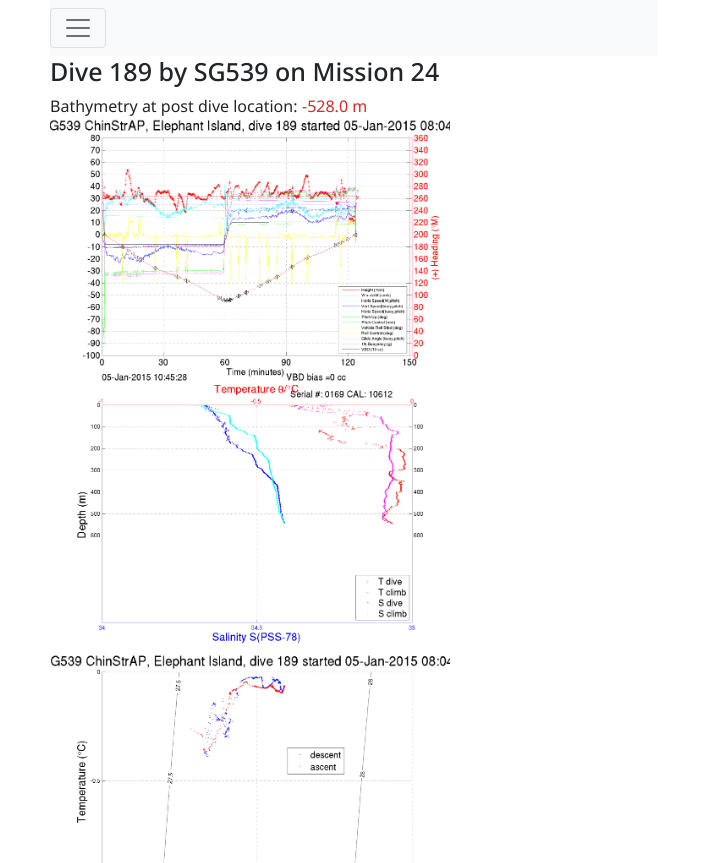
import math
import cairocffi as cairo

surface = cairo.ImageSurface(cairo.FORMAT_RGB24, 707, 863)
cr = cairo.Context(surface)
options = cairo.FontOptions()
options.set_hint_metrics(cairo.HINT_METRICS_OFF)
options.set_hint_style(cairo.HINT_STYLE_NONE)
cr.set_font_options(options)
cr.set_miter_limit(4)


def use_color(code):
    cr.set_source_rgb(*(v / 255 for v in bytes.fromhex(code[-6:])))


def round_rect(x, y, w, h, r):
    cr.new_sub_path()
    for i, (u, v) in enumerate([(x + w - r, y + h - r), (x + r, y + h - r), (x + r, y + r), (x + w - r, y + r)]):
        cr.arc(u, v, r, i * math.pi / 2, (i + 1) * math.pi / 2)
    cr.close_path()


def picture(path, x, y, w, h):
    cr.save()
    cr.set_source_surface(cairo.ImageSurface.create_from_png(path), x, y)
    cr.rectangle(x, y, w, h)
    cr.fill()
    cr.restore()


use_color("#ffffff")
cr.paint()
use_color("#f8f9fa")
cr.rectangle(50, 0, 607, 56)
cr.fill()
round_rect(50.5, 8.5, 55, 39, 3.5)
use_color("#dfe0e1")
cr.set_line_width(1)
cr.stroke()
picture("img1.png", 66, 19, 24, 18)
cr.select_font_face("Noto Sans Medium")
cr.set_font_size(25)
use_color("#212529")
cr.move_to(50, 81)
cr.show_text("Dive 189 by SG539 on Mission 24")
cr.select_font_face("Noto Sans")
cr.set_font_size(16)
cr.move_to(50, 112)
cr.show_text("Bathymetry at post dive location:")
use_color("#d92727")
cr.move_to(302, 112)
cr.show_text("-528.0 m")
picture("img2.png", 50, 119, 400, 262)
picture("img3.png", 77, 385, 346, 259)
picture("img4.png", 50, 655, 400, 208)
surface.write_to_png("result.png")
